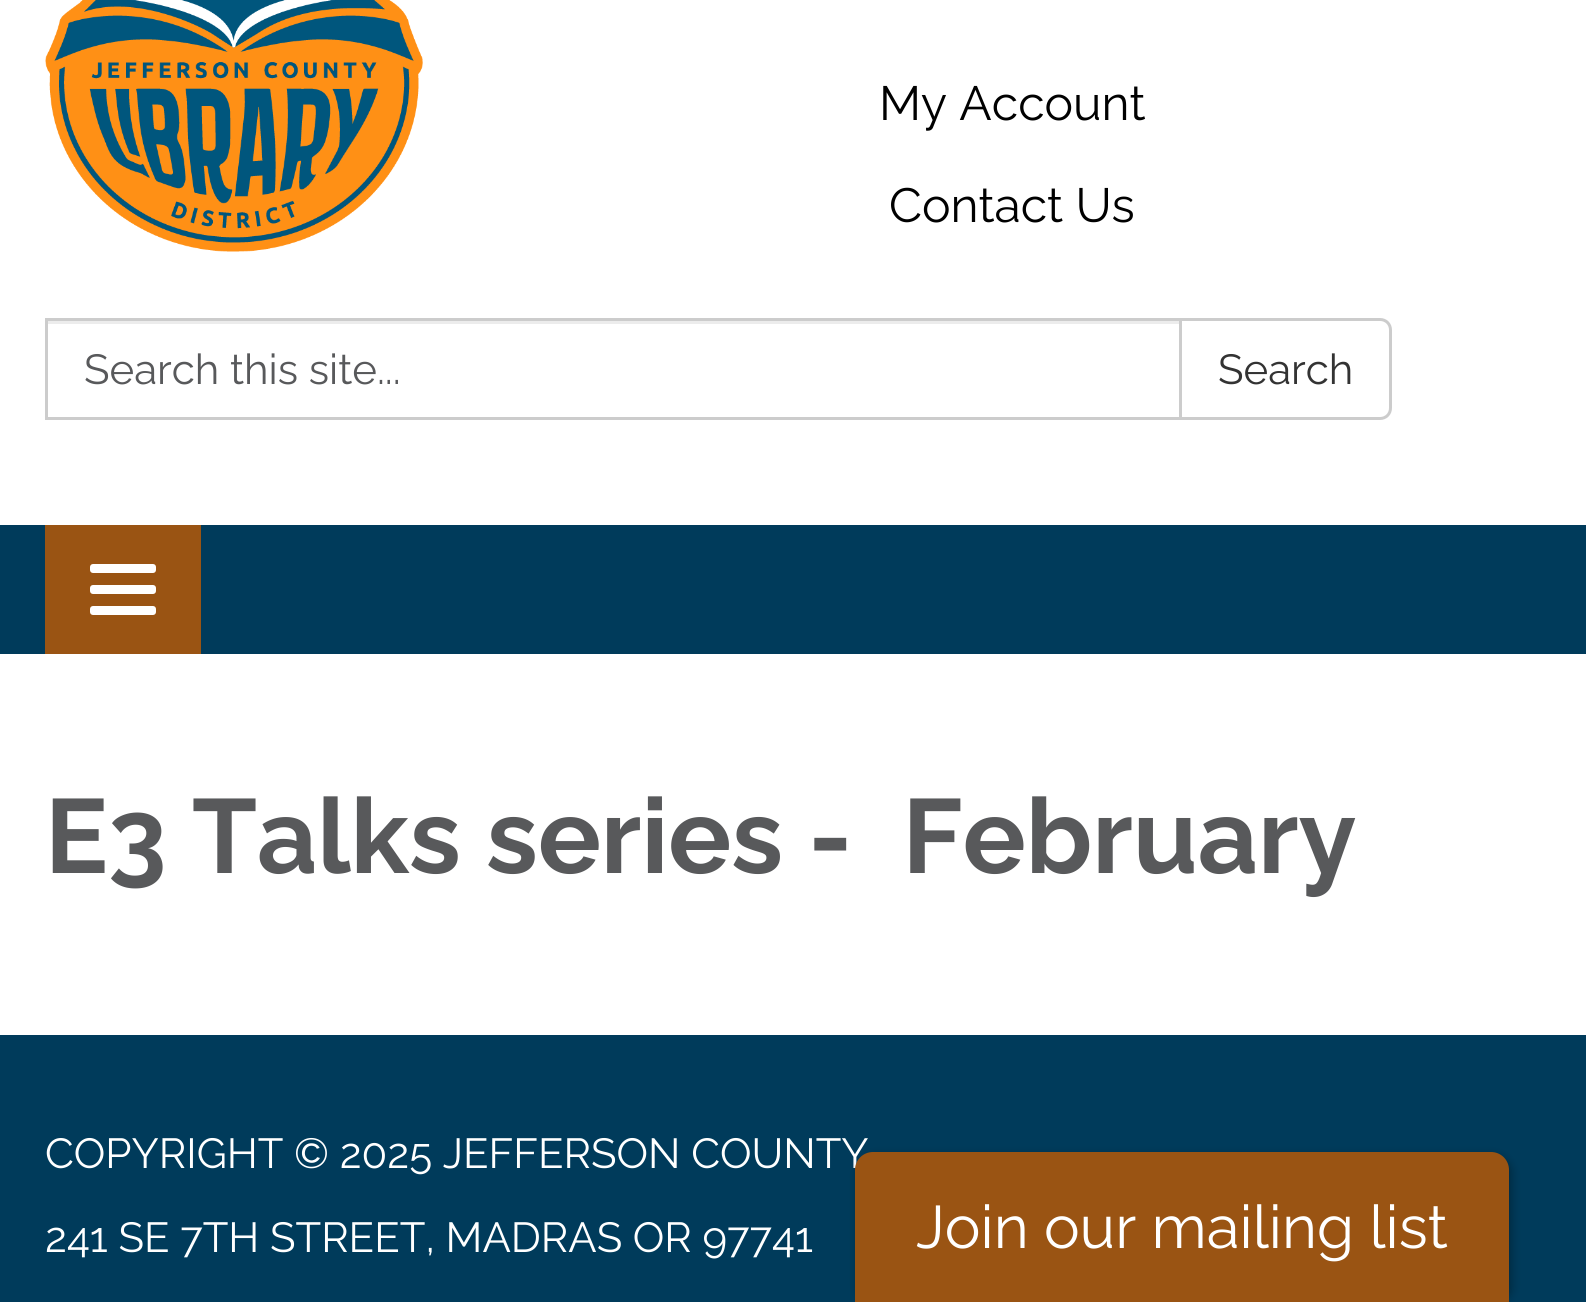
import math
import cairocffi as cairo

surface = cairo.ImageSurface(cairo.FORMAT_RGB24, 1586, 1302)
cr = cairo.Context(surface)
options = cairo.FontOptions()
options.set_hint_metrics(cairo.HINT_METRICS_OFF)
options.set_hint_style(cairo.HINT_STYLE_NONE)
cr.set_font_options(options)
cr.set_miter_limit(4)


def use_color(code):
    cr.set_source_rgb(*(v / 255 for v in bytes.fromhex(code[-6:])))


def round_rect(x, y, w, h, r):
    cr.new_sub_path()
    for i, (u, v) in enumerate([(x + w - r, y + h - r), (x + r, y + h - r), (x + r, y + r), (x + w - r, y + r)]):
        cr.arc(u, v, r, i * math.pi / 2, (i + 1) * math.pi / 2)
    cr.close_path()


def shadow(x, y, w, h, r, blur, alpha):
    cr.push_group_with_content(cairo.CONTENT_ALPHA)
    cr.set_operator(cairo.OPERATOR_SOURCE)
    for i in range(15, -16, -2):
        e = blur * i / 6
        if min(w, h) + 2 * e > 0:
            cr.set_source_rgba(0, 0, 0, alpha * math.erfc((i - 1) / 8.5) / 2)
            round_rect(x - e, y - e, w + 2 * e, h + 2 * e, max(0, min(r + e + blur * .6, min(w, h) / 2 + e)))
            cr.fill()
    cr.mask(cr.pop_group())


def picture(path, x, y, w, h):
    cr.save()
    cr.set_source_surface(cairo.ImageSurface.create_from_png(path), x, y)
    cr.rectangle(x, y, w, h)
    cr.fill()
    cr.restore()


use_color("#003b5b")
cr.paint()
use_color("#ffffff")
cr.rectangle(0, 0, 1586, 525)
cr.fill()
picture("img1.png", 45, 0, 378, 252)
cr.select_font_face("Raleway")
cr.set_font_size(48)
use_color("#000000")
cr.move_to(879, 120)
cr.show_text("My Account")
cr.move_to(889, 222)
cr.show_text("Contact Us")
use_color("#ececec")
cr.rectangle(48, 321, 1131, 3)
cr.fill()
cr.rectangle(46.5, 319.5, 1134, 99)
use_color("#cccccc")
cr.set_line_width(3)
cr.stroke()
cr.set_font_size(42)
use_color("#58595b")
cr.move_to(84, 384)
cr.show_text("Search this site...")
use_color("#ffffff")
cr.new_path()
cr.move_to(1180.5, 319.5)
cr.line_to(1380, 319.5)
cr.curve_to(1386, 319.5, 1390.5, 324, 1390.5, 330)
cr.line_to(1390.5, 408)
cr.curve_to(1390.5, 414, 1386, 418.5, 1380, 418.5)
cr.line_to(1180.5, 418.5)
cr.close_path()
cr.fill_preserve()
use_color("#cccccc")
cr.stroke()
use_color("#333333")
cr.move_to(1218, 384)
cr.show_text("Search")
use_color("#9a5413")
cr.rectangle(45, 525, 156, 129)
cr.fill()
use_color("#ffffff")
round_rect(90, 564, 66, 9, 3)
cr.fill()
round_rect(90, 585, 66, 9, 3)
cr.fill()
round_rect(90, 606, 66, 9, 3)
cr.fill()
cr.rectangle(0, 654, 1586, 381)
cr.fill()
cr.select_font_face("Raleway", cairo.FONT_SLANT_NORMAL, cairo.FONT_WEIGHT_BOLD)
cr.set_font_size(105)
use_color("#58595b")
cr.move_to(45, 873)
cr.show_text("E3 Talks series -  February")
cr.select_font_face("Raleway")
cr.set_font_size(42)
use_color("#ffffff")
cr.move_to(45, 1168)
cr.show_text("COPYRIGHT © 2025 JEFFERSON COUNTY")
cr.move_to(45, 1252)
cr.show_text("241 SE 7TH STREET, MADRAS OR 97741")
use_color("#000000")
shadow(858, 1155, 654, 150, 18, 4.5, 0.3)
use_color("#9a5413")
cr.new_path()
cr.move_to(873, 1152)
cr.line_to(1491, 1152)
cr.curve_to(1501, 1152, 1509, 1160, 1509, 1170)
cr.line_to(1509, 1302)
cr.line_to(855, 1302)
cr.line_to(855, 1170)
cr.curve_to(855, 1160, 863, 1152, 873, 1152)
cr.close_path()
cr.fill()
cr.set_font_size(60)
use_color("#ffffff")
cr.move_to(916, 1248)
cr.show_text("Join our mailing list")
surface.write_to_png("result.png")
